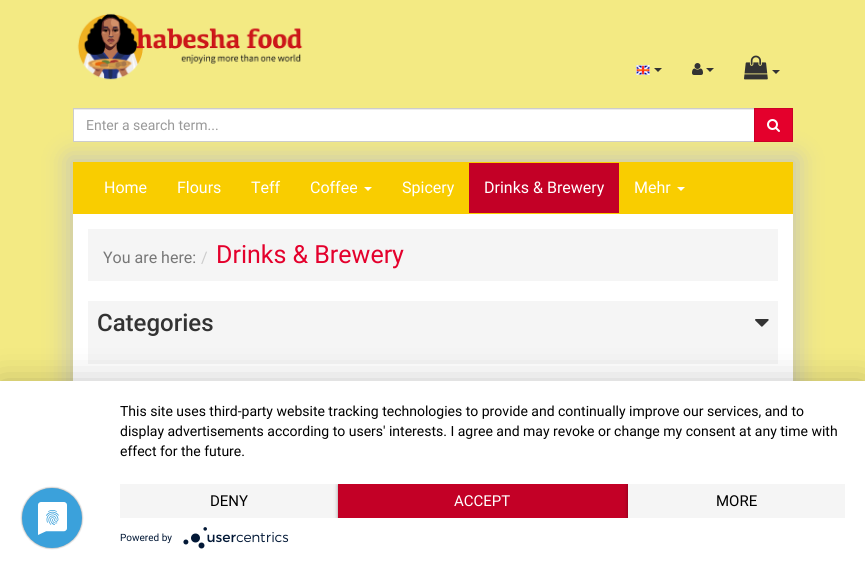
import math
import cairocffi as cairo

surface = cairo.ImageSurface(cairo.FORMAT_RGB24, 865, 570)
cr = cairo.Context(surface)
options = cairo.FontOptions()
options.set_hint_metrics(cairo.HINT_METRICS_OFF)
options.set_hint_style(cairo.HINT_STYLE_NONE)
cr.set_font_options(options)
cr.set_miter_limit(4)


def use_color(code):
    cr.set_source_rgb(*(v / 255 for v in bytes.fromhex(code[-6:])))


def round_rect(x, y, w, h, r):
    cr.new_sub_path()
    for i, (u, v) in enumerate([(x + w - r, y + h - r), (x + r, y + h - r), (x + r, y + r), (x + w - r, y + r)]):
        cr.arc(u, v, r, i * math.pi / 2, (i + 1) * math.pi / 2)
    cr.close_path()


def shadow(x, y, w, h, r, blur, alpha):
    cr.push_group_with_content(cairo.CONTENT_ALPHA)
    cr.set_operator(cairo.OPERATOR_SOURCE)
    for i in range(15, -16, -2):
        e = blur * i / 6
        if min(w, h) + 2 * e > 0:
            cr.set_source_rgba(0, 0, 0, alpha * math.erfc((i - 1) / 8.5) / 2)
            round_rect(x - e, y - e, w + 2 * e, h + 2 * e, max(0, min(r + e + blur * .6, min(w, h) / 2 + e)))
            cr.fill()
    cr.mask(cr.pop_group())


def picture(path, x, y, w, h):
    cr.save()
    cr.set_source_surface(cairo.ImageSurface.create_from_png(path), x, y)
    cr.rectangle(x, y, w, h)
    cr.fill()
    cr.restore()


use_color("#f3ea83")
cr.paint()
picture("img1.png", 77, 13, 226, 67)
picture("img2.png", 636, 65, 14, 10)
use_color("#333333")
cr.new_path()
cr.move_to(654, 68)
cr.line_to(662, 68)
cr.line_to(658, 72)
cr.close_path()
cr.fill()
picture("img3.png", 692, 63, 11, 12)
cr.new_path()
cr.move_to(706, 68)
cr.line_to(714, 68)
cr.line_to(710, 72)
cr.close_path()
cr.fill()
picture("img4.png", 744, 55, 24, 25)
cr.new_path()
cr.move_to(772, 70)
cr.line_to(780, 70)
cr.line_to(776, 74)
cr.close_path()
cr.fill()
use_color("#c8c7b5")
shadow(68, 157, 730, 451, 0, 12.5, 1)
use_color("#ffffff")
cr.rectangle(74, 110, 680, 31)
cr.fill()
use_color("#ececec")
cr.rectangle(74, 109, 680, 1)
cr.fill()
cr.rectangle(73.5, 108.5, 681, 33)
use_color("#cccccc")
cr.set_line_width(1)
cr.stroke()
cr.select_font_face("Roboto")
cr.set_font_size(14)
use_color("#999999")
cr.move_to(86, 130)
cr.show_text("Enter a search term...")
use_color("#e4002c")
cr.rectangle(754.5, 108.5, 38, 33)
cr.fill_preserve()
use_color("#cb0027")
cr.stroke()
picture("img5.png", 767, 119, 13, 13)
use_color("#f9cd00")
cr.rectangle(73, 162, 720, 52)
cr.fill()
cr.set_font_size(16)
use_color("#ffffff")
cr.move_to(104, 193)
cr.show_text("Home")
cr.move_to(177, 193)
cr.show_text("Flours")
cr.move_to(251, 193)
cr.show_text("Teff")
cr.move_to(310, 193)
cr.show_text("Coffee")
cr.new_path()
cr.move_to(364, 187)
cr.line_to(372, 187)
cr.line_to(368, 191)
cr.close_path()
cr.fill()
cr.move_to(402, 193)
cr.show_text("Spicery")
use_color("#c30026")
cr.rectangle(469, 163, 150, 50)
cr.fill()
use_color("#ffffff")
cr.move_to(484, 193)
cr.show_text("Drinks & Brewery")
cr.move_to(634, 193)
cr.show_text("Mehr")
cr.new_path()
cr.move_to(677, 187)
cr.line_to(685, 187)
cr.line_to(681, 191)
cr.close_path()
cr.fill()
cr.rectangle(73, 214, 720, 167)
cr.fill()
use_color("#f5f5f5")
cr.rectangle(88, 229, 690, 52)
cr.fill()
use_color("#777777")
cr.move_to(103, 263)
cr.show_text("You are here:")
use_color("#cccccc")
cr.move_to(201, 263)
cr.show_text("/")
cr.set_font_size(25)
use_color("#e4002c")
cr.move_to(216, 263)
cr.show_text("Drinks & Brewery")
use_color("#f5f5f5")
cr.rectangle(88, 301, 690, 63)
cr.fill()
cr.select_font_face("Roboto Medium")
cr.set_font_size(24)
use_color("#333333")
cr.move_to(97, 331)
cr.show_text("Categories")
picture("img6.png", 755, 319, 14, 8)
use_color("#000000")
shadow(0, 387, 865, 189, 0, 18, 0.3)
use_color("#ffffff")
cr.rectangle(0, 381, 865, 189)
cr.fill()
picture("img7.png", 20, 486, 64, 64)
cr.select_font_face("Roboto")
cr.set_font_size(14)
use_color("#000000")
cr.move_to(120, 416)
cr.show_text("This site uses third-party website tracking technologies to provide and continually improve our services, and to")
cr.move_to(120, 436)
cr.show_text("display advertisements according to users' interests. I agree and may revoke or change my consent at any time with")
cr.move_to(120, 456)
cr.show_text("effect for the future.")
use_color("#f5f5f5")
cr.rectangle(120, 484, 218, 34)
cr.fill()
cr.set_font_size(15)
use_color("#000000")
cr.move_to(210, 506)
cr.show_text("DENY")
cr.save()
cr.rectangle(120, 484, 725, 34)
cr.clip()
use_color("#000000")
shadow(338, 485, 290, 34, 0, 2, 0.4)
cr.restore()
use_color("#c30026")
cr.rectangle(338, 484, 290, 34)
cr.fill()
use_color("#ffffff")
cr.move_to(454, 506)
cr.show_text("ACCEPT")
cr.save()
cr.rectangle(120, 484, 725, 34)
cr.clip()
use_color("#000000")
shadow(628, 485, 217, 34, 0, 2, 0.4)
cr.restore()
use_color("#f5f5f5")
cr.rectangle(628, 484, 217, 34)
cr.fill()
use_color("#000000")
cr.move_to(716, 506)
cr.show_text("MORE")
cr.set_font_size(10)
use_color("#021836")
cr.move_to(120, 541)
cr.show_text("Powered by")
picture("img8.png", 183, 527, 106, 22)
surface.write_to_png("result.png")
